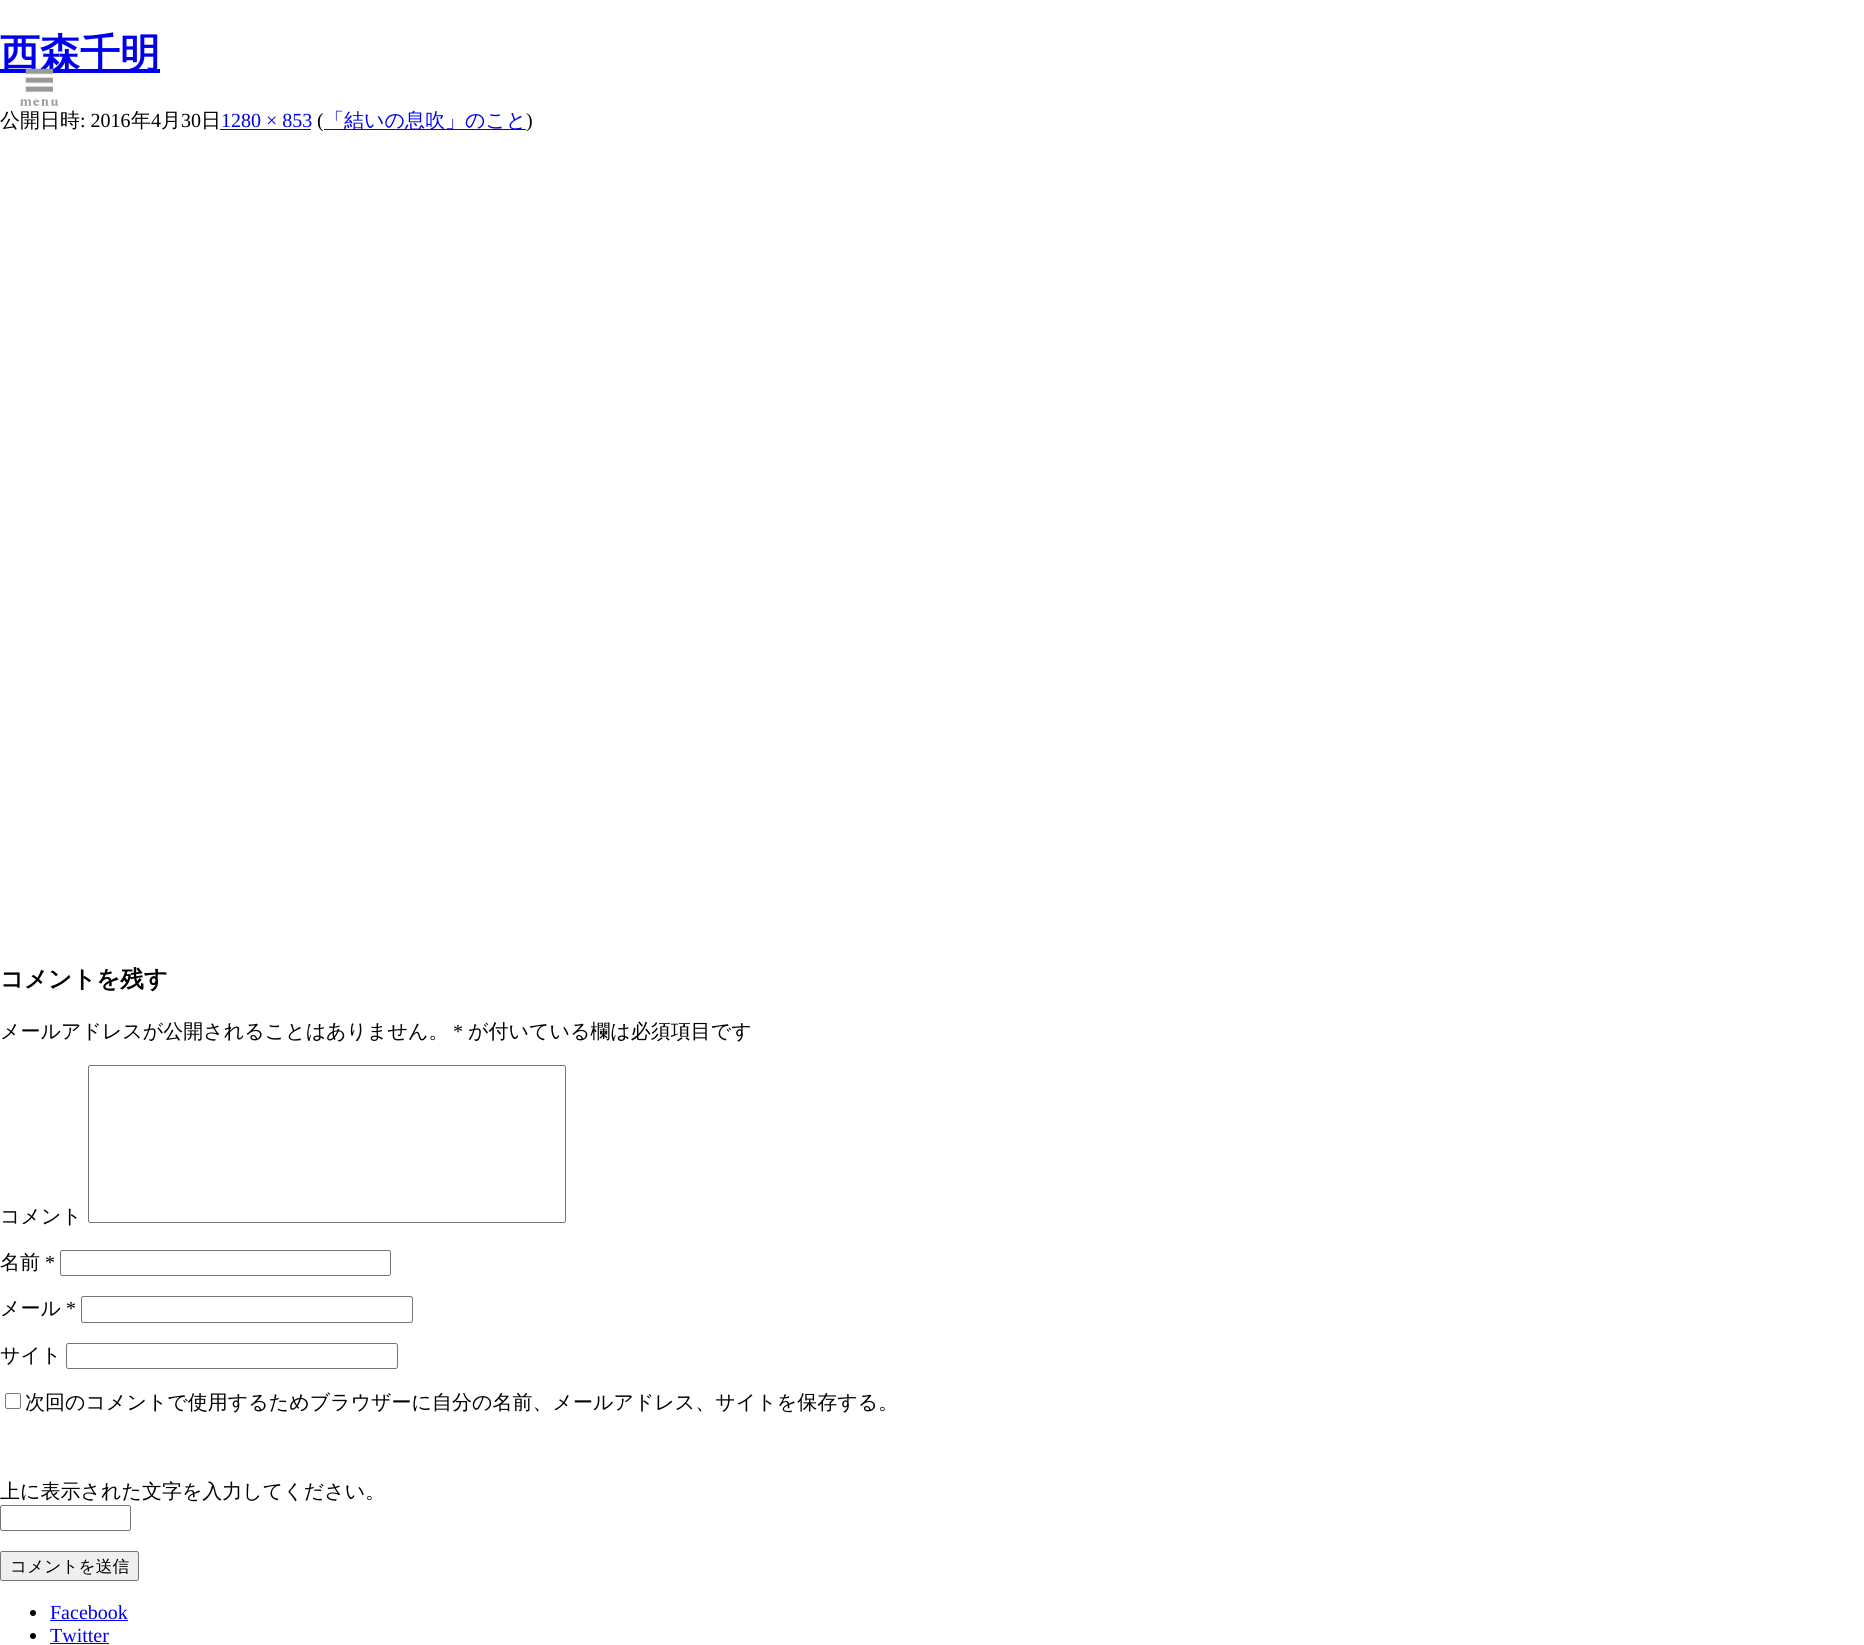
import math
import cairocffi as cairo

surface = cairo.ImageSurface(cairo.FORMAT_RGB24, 1864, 1645)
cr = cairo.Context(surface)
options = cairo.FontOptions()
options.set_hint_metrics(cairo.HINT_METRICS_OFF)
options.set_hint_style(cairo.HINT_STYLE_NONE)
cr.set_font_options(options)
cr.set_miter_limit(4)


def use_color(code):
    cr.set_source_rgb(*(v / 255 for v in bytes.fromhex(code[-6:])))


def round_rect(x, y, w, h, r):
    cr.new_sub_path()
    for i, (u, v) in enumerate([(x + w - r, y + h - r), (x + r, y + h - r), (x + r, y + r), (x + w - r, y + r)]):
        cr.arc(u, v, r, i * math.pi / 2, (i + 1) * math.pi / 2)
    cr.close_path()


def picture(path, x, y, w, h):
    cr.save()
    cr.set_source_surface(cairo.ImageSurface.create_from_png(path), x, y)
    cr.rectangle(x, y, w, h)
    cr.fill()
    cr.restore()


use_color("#ffffff")
cr.paint()
use_color("#0000ee")
cr.rectangle(0, 69, 160, 4)
cr.fill()
cr.select_font_face("WenQuanYi Zen Hei", cairo.FONT_SLANT_NORMAL, cairo.FONT_WEIGHT_BOLD)
cr.set_font_size(40)
cr.move_to(0, 67)
cr.show_text("西森千明")
picture("img1.png", 20, 68, 39, 39)
cr.select_font_face("WenQuanYi Zen Hei Medium")
cr.set_font_size(20)
use_color("#000000")
cr.move_to(0, 127)
cr.show_text("公開日時")
cr.select_font_face("Liberation Serif")
cr.move_to(80, 127)
cr.show_text(": 2016")
cr.select_font_face("WenQuanYi Zen Hei Medium")
cr.move_to(131, 127)
cr.show_text("年")
cr.select_font_face("Liberation Serif")
cr.move_to(151, 127)
cr.show_text("4")
cr.select_font_face("WenQuanYi Zen Hei Medium")
cr.move_to(161, 127)
cr.show_text("月")
cr.select_font_face("Liberation Serif")
cr.move_to(181, 127)
cr.show_text("30")
cr.select_font_face("WenQuanYi Zen Hei Medium")
cr.move_to(201, 127)
cr.show_text("日")
cr.select_font_face("Liberation Serif")
use_color("#0000ee")
cr.move_to(221, 127)
cr.show_text("1280 × 853")
cr.rectangle(220, 129, 91, 1)
cr.fill()
use_color("#000000")
cr.move_to(317, 127)
cr.show_text("(")
use_color("#0000ee")
cr.rectangle(324, 129, 202, 1)
cr.fill()
cr.select_font_face("WenQuanYi Zen Hei Medium")
cr.move_to(324, 127)
cr.show_text("「結いの息吹」のこと")
cr.select_font_face("Liberation Serif")
use_color("#000000")
cr.move_to(526, 127)
cr.show_text(")")
cr.select_font_face("WenQuanYi Zen Hei", cairo.FONT_SLANT_NORMAL, cairo.FONT_WEIGHT_BOLD)
cr.set_font_size(23.5)
cr.move_to(0, 987)
cr.show_text("コメントを残す")
cr.select_font_face("WenQuanYi Zen Hei Medium")
cr.set_font_size(20)
cr.move_to(0, 1038)
cr.show_text("メールアドレスが公開されることはありません。")
cr.select_font_face("Liberation Serif")
cr.move_to(453, 1038)
cr.show_text("*")
cr.select_font_face("WenQuanYi Zen Hei Medium")
cr.move_to(468, 1038)
cr.show_text("が付いている欄は必須項目です")
cr.move_to(0, 1223)
cr.show_text("コメント")
round_rect(88.5, 1065.5, 477, 157, 2)
use_color("#767676")
cr.set_line_width(1)
cr.stroke()
use_color("#000000")
cr.move_to(0, 1269)
cr.show_text("名前")
cr.select_font_face("Liberation Serif")
cr.move_to(45, 1269)
cr.show_text("*")
round_rect(60.5, 1250.5, 330, 25, 2)
use_color("#767676")
cr.stroke()
cr.select_font_face("WenQuanYi Zen Hei Medium")
use_color("#000000")
cr.move_to(0, 1315)
cr.show_text("メール")
cr.select_font_face("Liberation Serif")
cr.move_to(66, 1315)
cr.show_text("*")
round_rect(81.5, 1296.5, 331, 26, 2)
use_color("#767676")
cr.stroke()
cr.select_font_face("WenQuanYi Zen Hei Medium")
use_color("#000000")
cr.move_to(0, 1362)
cr.show_text("サイト")
round_rect(66.5, 1343.5, 331, 25, 2)
use_color("#767676")
cr.stroke()
round_rect(5.5, 1393.5, 15, 15, 2)
cr.stroke()
use_color("#000000")
cr.move_to(25, 1409)
cr.show_text("次回のコメントで使用するためブラウザーに自分の名前、メールアドレス、サイトを保存する。")
cr.move_to(0, 1498)
cr.show_text("上に表示された文字を入力してください。")
round_rect(0.5, 1505.5, 130, 25, 2)
use_color("#767676")
cr.stroke()
use_color("#efefef")
round_rect(0.5, 1551.5, 138, 29, 2)
cr.fill_preserve()
use_color("#767676")
cr.stroke()
cr.set_font_size(16.75)
use_color("#000000")
cr.move_to(10, 1572)
cr.show_text("コメントを送信")
cr.new_path()
cr.arc(33, 1613, 3, 0, 2 * math.pi)
cr.fill()
cr.select_font_face("Liberation Serif")
cr.set_font_size(20)
use_color("#0000ee")
cr.move_to(50, 1619)
cr.show_text("Facebook")
cr.rectangle(50, 1620, 78, 1)
cr.fill()
use_color("#000000")
cr.arc(33, 1636, 3, 0, 2 * math.pi)
cr.fill()
use_color("#0000ee")
cr.move_to(50, 1642)
cr.show_text("Twitter")
cr.rectangle(50, 1643, 59, 1)
cr.fill()
surface.write_to_png("result.png")
